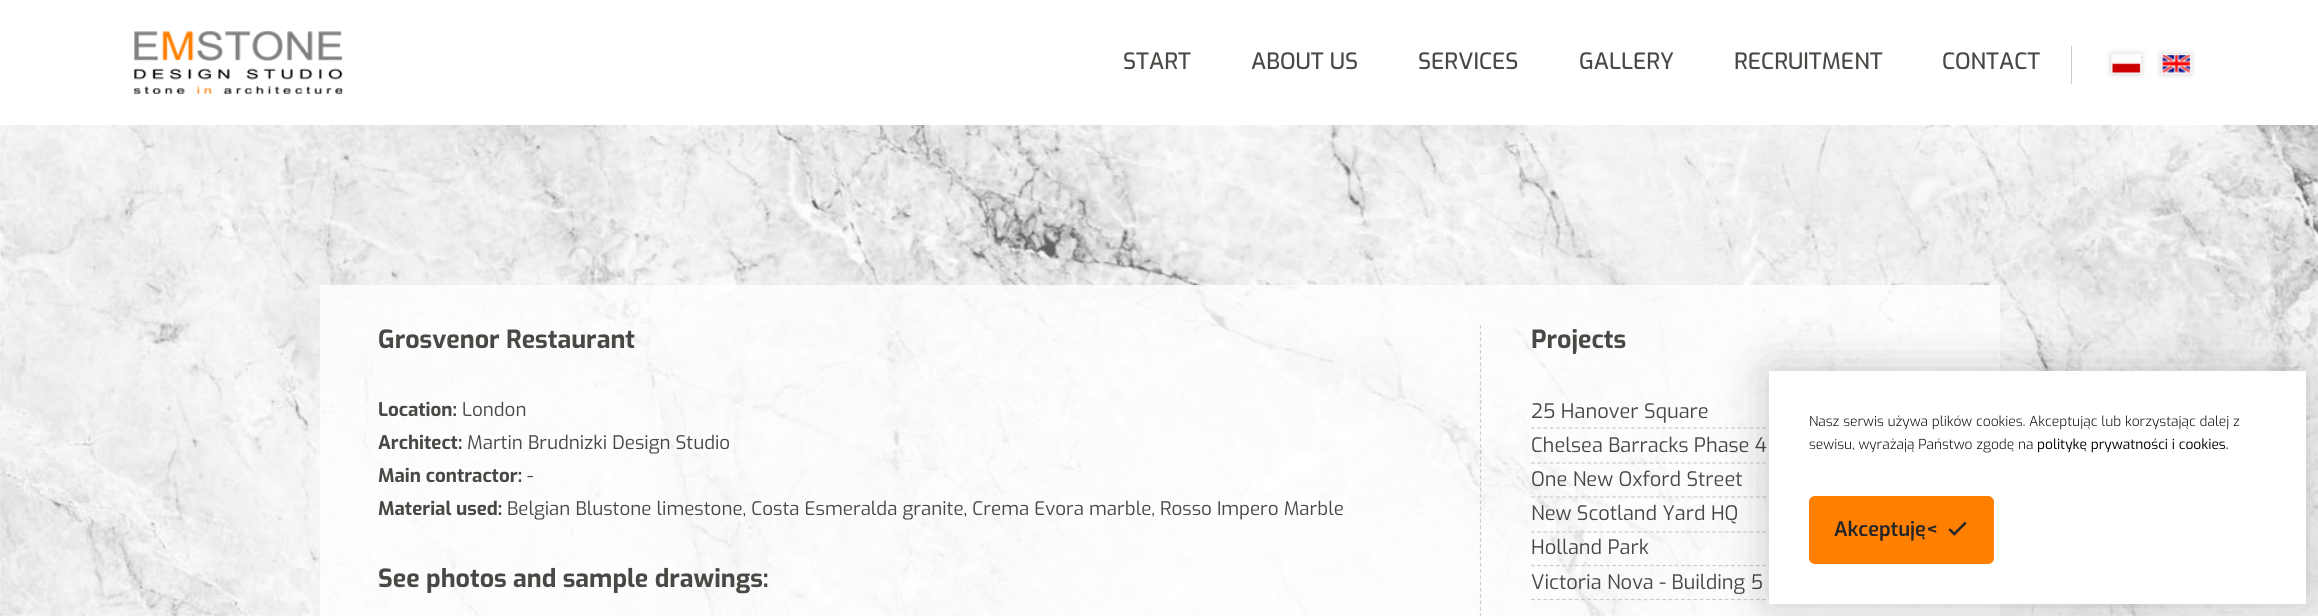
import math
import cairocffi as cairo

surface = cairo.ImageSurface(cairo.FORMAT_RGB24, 2318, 616)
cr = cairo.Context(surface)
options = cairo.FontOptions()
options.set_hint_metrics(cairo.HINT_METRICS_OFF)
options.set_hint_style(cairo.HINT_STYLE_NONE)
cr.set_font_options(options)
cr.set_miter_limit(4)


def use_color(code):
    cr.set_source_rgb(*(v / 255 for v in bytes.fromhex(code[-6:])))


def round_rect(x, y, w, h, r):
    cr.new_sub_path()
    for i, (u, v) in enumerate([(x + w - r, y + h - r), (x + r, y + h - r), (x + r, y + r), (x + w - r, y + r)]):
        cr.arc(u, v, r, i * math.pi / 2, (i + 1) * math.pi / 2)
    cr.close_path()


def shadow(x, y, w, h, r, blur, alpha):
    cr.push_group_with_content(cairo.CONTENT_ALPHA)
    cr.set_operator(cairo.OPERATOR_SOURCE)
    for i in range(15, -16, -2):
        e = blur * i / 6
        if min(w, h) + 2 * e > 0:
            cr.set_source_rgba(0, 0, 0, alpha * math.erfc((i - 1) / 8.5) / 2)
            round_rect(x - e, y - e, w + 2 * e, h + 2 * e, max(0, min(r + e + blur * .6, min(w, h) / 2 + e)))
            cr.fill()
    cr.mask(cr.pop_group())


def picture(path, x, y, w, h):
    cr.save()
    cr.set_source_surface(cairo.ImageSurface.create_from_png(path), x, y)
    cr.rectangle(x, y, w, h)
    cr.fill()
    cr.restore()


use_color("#ffffff")
cr.paint()
picture("img1.png", 133, 31, 210, 63)
cr.select_font_face("Exo Medium")
cr.set_font_size(22.5)
use_color("#474944")
cr.move_to(1123, 69)
cr.show_text("START")
cr.move_to(1251, 69)
cr.show_text("ABOUT US")
cr.move_to(1418, 69)
cr.show_text("SERVICES")
cr.move_to(1579, 69)
cr.show_text("GALLERY")
cr.move_to(1734, 69)
cr.show_text("RECRUITMENT")
cr.move_to(1942, 69)
cr.show_text("CONTACT")
use_color("#cccccc")
cr.rectangle(2071, 46, 1, 38)
cr.fill()
use_color("#000000")
shadow(2111, 54, 30, 20, 0, 3, 0.2)
picture("img2.png", 2111, 53, 31, 21)
shadow(2161, 54, 30, 20, 0, 3, 0.2)
picture("img3.png", 2161, 53, 31, 21)
picture("img4.png", 0, 125, 2318, 491)
cr.set_source_rgba(1, 1, 1, 0.8)
cr.rectangle(320, 285, 1680, 331)
cr.fill()
cr.select_font_face("Exo", cairo.FONT_SLANT_NORMAL, cairo.FONT_WEIGHT_BOLD)
cr.set_font_size(25)
use_color("#474944")
cr.move_to(378, 348)
cr.show_text("Grosvenor Restaurant")
cr.set_font_size(18.75)
cr.move_to(378, 416)
cr.show_text("Location:")
cr.select_font_face("Exo")
cr.move_to(462, 416)
cr.show_text("London")
cr.select_font_face("Exo", cairo.FONT_SLANT_NORMAL, cairo.FONT_WEIGHT_BOLD)
cr.move_to(378, 449)
cr.show_text("Architect:")
cr.select_font_face("Exo")
cr.move_to(467, 449)
cr.show_text("Martin Brudnizki Design Studio")
cr.select_font_face("Exo", cairo.FONT_SLANT_NORMAL, cairo.FONT_WEIGHT_BOLD)
cr.move_to(378, 482)
cr.show_text("Main contractor:")
cr.select_font_face("Exo")
cr.move_to(527, 482)
cr.show_text("-")
cr.select_font_face("Exo", cairo.FONT_SLANT_NORMAL, cairo.FONT_WEIGHT_BOLD)
cr.move_to(378, 515)
cr.show_text("Material used:")
cr.select_font_face("Exo")
cr.move_to(507, 515)
cr.show_text("Belgian Blustone limestone, Costa Esmeralda granite, Crema Evora marble, Rosso Impero Marble")
cr.select_font_face("Exo", cairo.FONT_SLANT_NORMAL, cairo.FONT_WEIGHT_BOLD)
cr.set_font_size(25)
cr.move_to(378, 587)
cr.show_text("See photos and sample drawings:")
cr.new_path()
cr.move_to(1480.5, 325)
cr.line_to(1480.5, 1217.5)
use_color("#cccccc")
cr.set_line_width(1.2)
cr.set_dash([3.75, 2.51])
cr.stroke()
use_color("#474944")
cr.move_to(1531, 348)
cr.show_text("Projects")
cr.new_path()
cr.move_to(1531, 428)
cr.line_to(1941, 428)
use_color("#cccccc")
cr.set_dash([3.75, 2.5])
cr.stroke()
cr.select_font_face("Exo")
cr.set_font_size(20)
use_color("#474944")
cr.move_to(1531, 418)
cr.show_text("25 Hanover Square")
cr.new_path()
cr.move_to(1531, 463)
cr.line_to(1941, 463)
use_color("#cccccc")
cr.stroke()
use_color("#474944")
cr.move_to(1531, 452)
cr.show_text("Chelsea Barracks Phase 4")
cr.new_path()
cr.move_to(1531, 497)
cr.line_to(1941, 497)
use_color("#cccccc")
cr.stroke()
use_color("#474944")
cr.move_to(1531, 486)
cr.show_text("One New Oxford Street")
cr.new_path()
cr.move_to(1531, 532)
cr.line_to(1941, 532)
use_color("#cccccc")
cr.stroke()
use_color("#474944")
cr.move_to(1531, 520)
cr.show_text("New Scotland Yard HQ")
cr.new_path()
cr.move_to(1531, 565.5)
cr.line_to(1941, 565.5)
use_color("#cccccc")
cr.stroke()
use_color("#474944")
cr.move_to(1531, 554)
cr.show_text("Holland Park")
cr.new_path()
cr.move_to(1531, 599.5)
cr.line_to(1941, 599.5)
use_color("#cccccc")
cr.stroke()
use_color("#474944")
cr.move_to(1531, 589)
cr.show_text("Victoria Nova - Building 5")
use_color("#000000")
shadow(1769, 371, 537, 233, 0, 25, 0.22)
use_color("#ffffff")
cr.rectangle(1769, 371, 537, 233)
cr.fill()
cr.select_font_face("Exo Light")
cr.set_font_size(13.75)
use_color("#000000")
cr.move_to(1809, 426)
cr.show_text("Nasz serwis używa plików cookies. Akceptując lub korzystając dalej z")
cr.move_to(1809, 449)
cr.show_text("sewisu, wyrażają Państwo zgodę na")
cr.select_font_face("Exo")
cr.move_to(2037, 449)
cr.show_text("politykę prywatności i cookies.")
use_color("#ff7f00")
round_rect(1809.5, 496.5, 184, 67, 5.5)
cr.fill_preserve()
cr.set_line_width(1)
cr.set_dash([])
cr.stroke()
cr.select_font_face("Exo SemiBold")
cr.set_font_size(20)
use_color("#212529")
cr.move_to(1834, 536)
cr.show_text("Akceptuję<")
picture("img5.png", 1948, 521, 19, 15)
surface.write_to_png("result.png")
